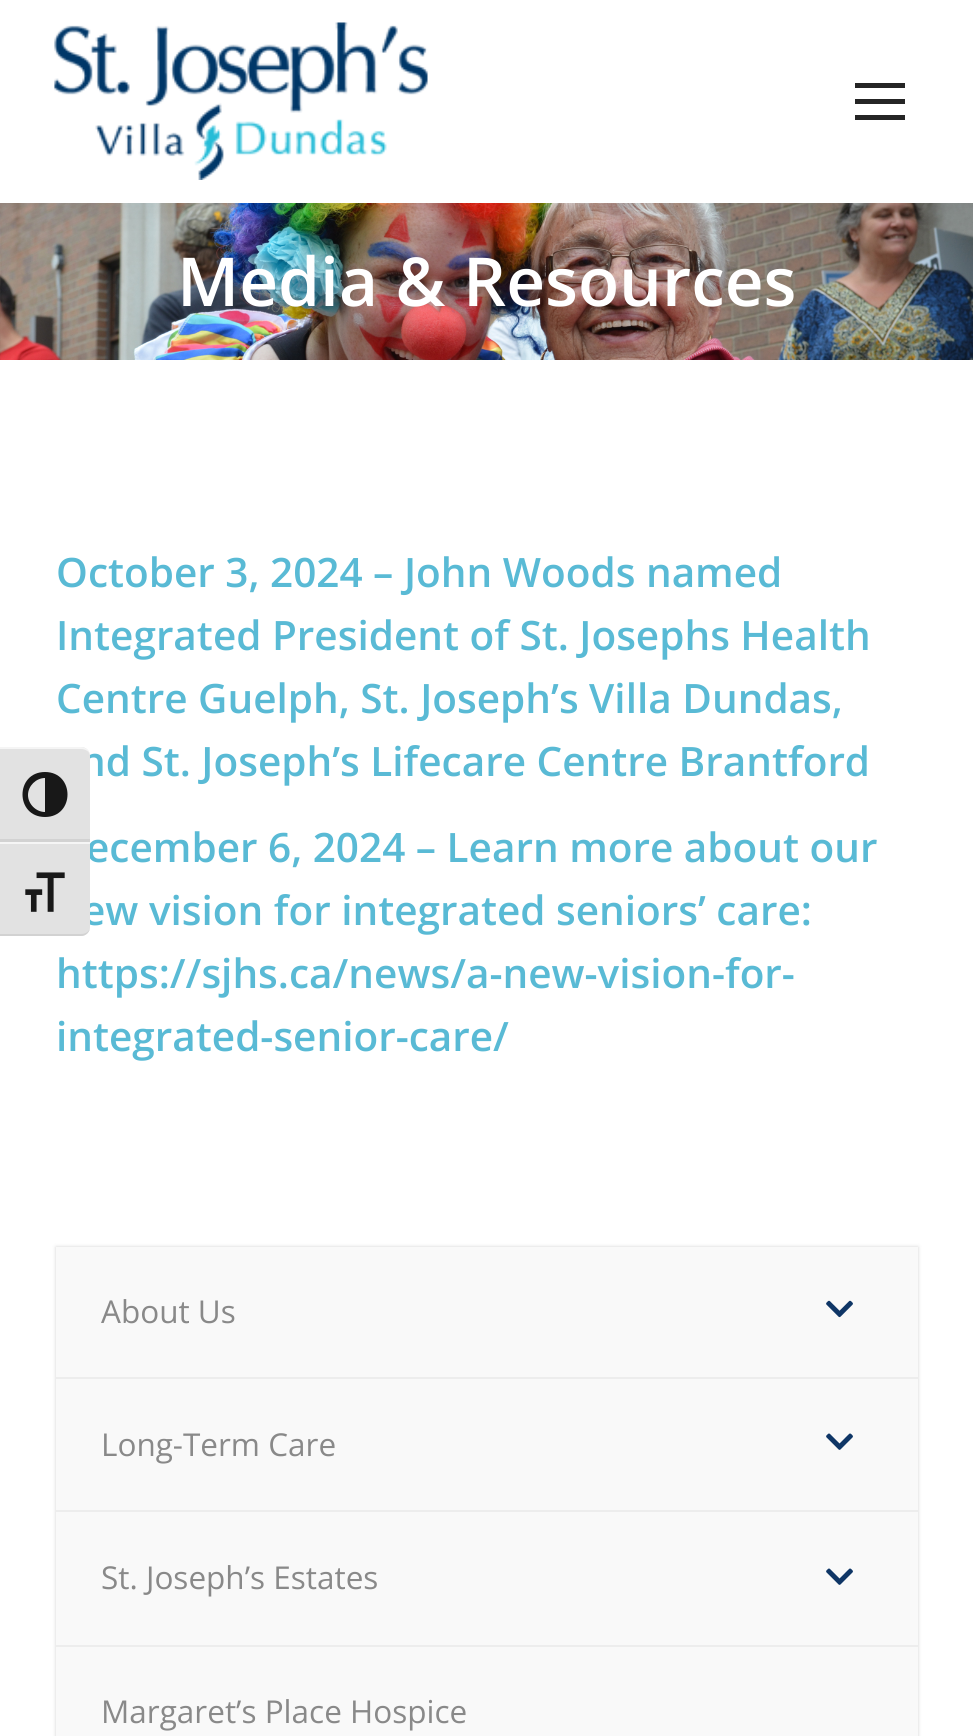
import math
import cairocffi as cairo

surface = cairo.ImageSurface(cairo.FORMAT_RGB24, 973, 1736)
cr = cairo.Context(surface)
options = cairo.FontOptions()
options.set_hint_metrics(cairo.HINT_METRICS_OFF)
options.set_hint_style(cairo.HINT_STYLE_NONE)
cr.set_font_options(options)
cr.set_miter_limit(4)


def use_color(code):
    cr.set_source_rgb(*(v / 255 for v in bytes.fromhex(code[-6:])))


def round_rect(x, y, w, h, r):
    cr.new_sub_path()
    for i, (u, v) in enumerate([(x + w - r, y + h - r), (x + r, y + h - r), (x + r, y + r), (x + w - r, y + r)]):
        cr.arc(u, v, r, i * math.pi / 2, (i + 1) * math.pi / 2)
    cr.close_path()


def shadow(x, y, w, h, r, blur, alpha):
    cr.push_group_with_content(cairo.CONTENT_ALPHA)
    cr.set_operator(cairo.OPERATOR_SOURCE)
    for i in range(15, -16, -2):
        e = blur * i / 6
        if min(w, h) + 2 * e > 0:
            cr.set_source_rgba(0, 0, 0, alpha * math.erfc((i - 1) / 8.5) / 2)
            round_rect(x - e, y - e, w + 2 * e, h + 2 * e, max(0, min(r + e + blur * .6, min(w, h) / 2 + e)))
            cr.fill()
    cr.mask(cr.pop_group())


def picture(path, x, y, w, h):
    cr.save()
    cr.set_source_surface(cairo.ImageSurface.create_from_png(path), x, y)
    cr.rectangle(x, y, w, h)
    cr.fill()
    cr.restore()


use_color("#ffffff")
cr.paint()
cr.select_font_face("Open Sans SemiBold")
cr.set_font_size(40.5)
use_color("#59bad5")
cr.move_to(80, 776)
cr.show_text("nd St. Joseph’s Lifecare Centre Brantford")
cr.move_to(86, 862)
cr.show_text("ecember 6, 2024 – Learn more about our")
use_color("#e2e2e2")
cr.new_path()
cr.move_to(0, 747)
cr.line_to(81, 747)
cr.curve_to(86, 747, 90, 751, 90, 756)
cr.line_to(90, 842)
cr.line_to(0, 842)
cr.close_path()
cr.fill()
use_color("#f5f5f5")
cr.new_path()
cr.move_to(0, 747)
cr.line_to(0, 749)
cr.line_to(81, 749)
cr.curve_to(86, 749, 90, 752, 90, 756)
cr.curve_to(90, 751, 86, 747, 81, 747)
cr.close_path()
cr.fill()
use_color("#d2d2d2")
cr.rectangle(0, 839, 90, 3)
cr.fill()
use_color("#181818")
cr.new_path()
cr.move_to(45, 772)
cr.curve_to(15, 772, 15, 817, 45, 817)
cr.curve_to(75, 817, 75, 772, 45, 772)
cr.close_path()
cr.move_to(28, 795)
cr.curve_to(28, 786, 36, 778, 45, 778)
cr.line_to(45, 812)
cr.curve_to(36, 812, 28, 804, 28, 795)
cr.close_path()
cr.fill()
use_color("#59bad5")
cr.move_to(82, 925)
cr.show_text("ew vision for integrated seniors’ care:")
use_color("#e2e2e2")
cr.new_path()
cr.move_to(0, 842)
cr.line_to(90, 842)
cr.line_to(90, 927)
cr.curve_to(90, 932, 86, 936, 81, 936)
cr.line_to(0, 936)
cr.close_path()
cr.fill()
use_color("#f5f5f5")
cr.rectangle(0, 842, 90, 2)
cr.fill()
use_color("#d2d2d2")
cr.new_path()
cr.move_to(0, 934)
cr.line_to(0, 936)
cr.line_to(81, 936)
cr.curve_to(86, 936, 90, 932, 90, 927)
cr.curve_to(90, 931, 86, 934, 81, 934)
cr.close_path()
cr.fill()
picture("img1.png", 25, 872, 40, 40)
picture("img3.png", 0, 203, 973, 157)
use_color("#000000")
shadow(-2, -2, 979, 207, 0, 17, 0.07)
use_color("#ffffff")
cr.rectangle(0, 0, 973, 203)
cr.fill()
picture("img2.png", 54, 22, 374, 158)
use_color("#252525")
cr.rectangle(855, 83, 50, 5)
cr.fill()
cr.rectangle(855, 99, 50, 5)
cr.fill()
cr.rectangle(855, 115, 50, 5)
cr.fill()
cr.set_font_size(67.5)
use_color("#ffffff")
cr.move_to(177, 306)
cr.show_text("Media & Resources")
cr.set_font_size(40.5)
use_color("#59bad5")
cr.move_to(56, 587)
cr.show_text("October 3, 2024 – John Woods named")
cr.move_to(56, 650)
cr.show_text("Integrated President of St. Josephs Health")
cr.move_to(56, 713)
cr.show_text("Centre Guelph, St. Joseph’s Villa Dundas,")
cr.move_to(56, 988)
cr.show_text("https://sjhs.ca/news/a-new-vision-for-")
cr.move_to(56, 1051)
cr.show_text("integrated-senior-care/")
use_color("#000000")
shadow(56, 1247, 862, 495, 0, 2, 0.17)
use_color("#f9f9f9")
cr.rectangle(56, 1247, 862, 489)
cr.fill()
use_color("#ededed")
cr.rectangle(56, 1377, 862, 2)
cr.fill()
cr.select_font_face("Open Sans")
cr.set_font_size(31.5)
use_color("#898989")
cr.move_to(101, 1323)
cr.show_text("About Us")
picture("img4.png", 826, 1300, 27, 18)
use_color("#ededed")
cr.rectangle(56, 1510, 862, 2)
cr.fill()
use_color("#898989")
cr.move_to(101, 1456)
cr.show_text("Long-Term Care")
picture("img5.png", 826, 1433, 27, 17)
use_color("#ededed")
cr.rectangle(56, 1645, 862, 2)
cr.fill()
use_color("#898989")
cr.move_to(101, 1589)
cr.show_text("St. Joseph’s Estates")
picture("img5.png", 826, 1568, 27, 17)
cr.move_to(101, 1723)
cr.show_text("Margaret’s Place Hospice")
surface.write_to_png("result.png")
